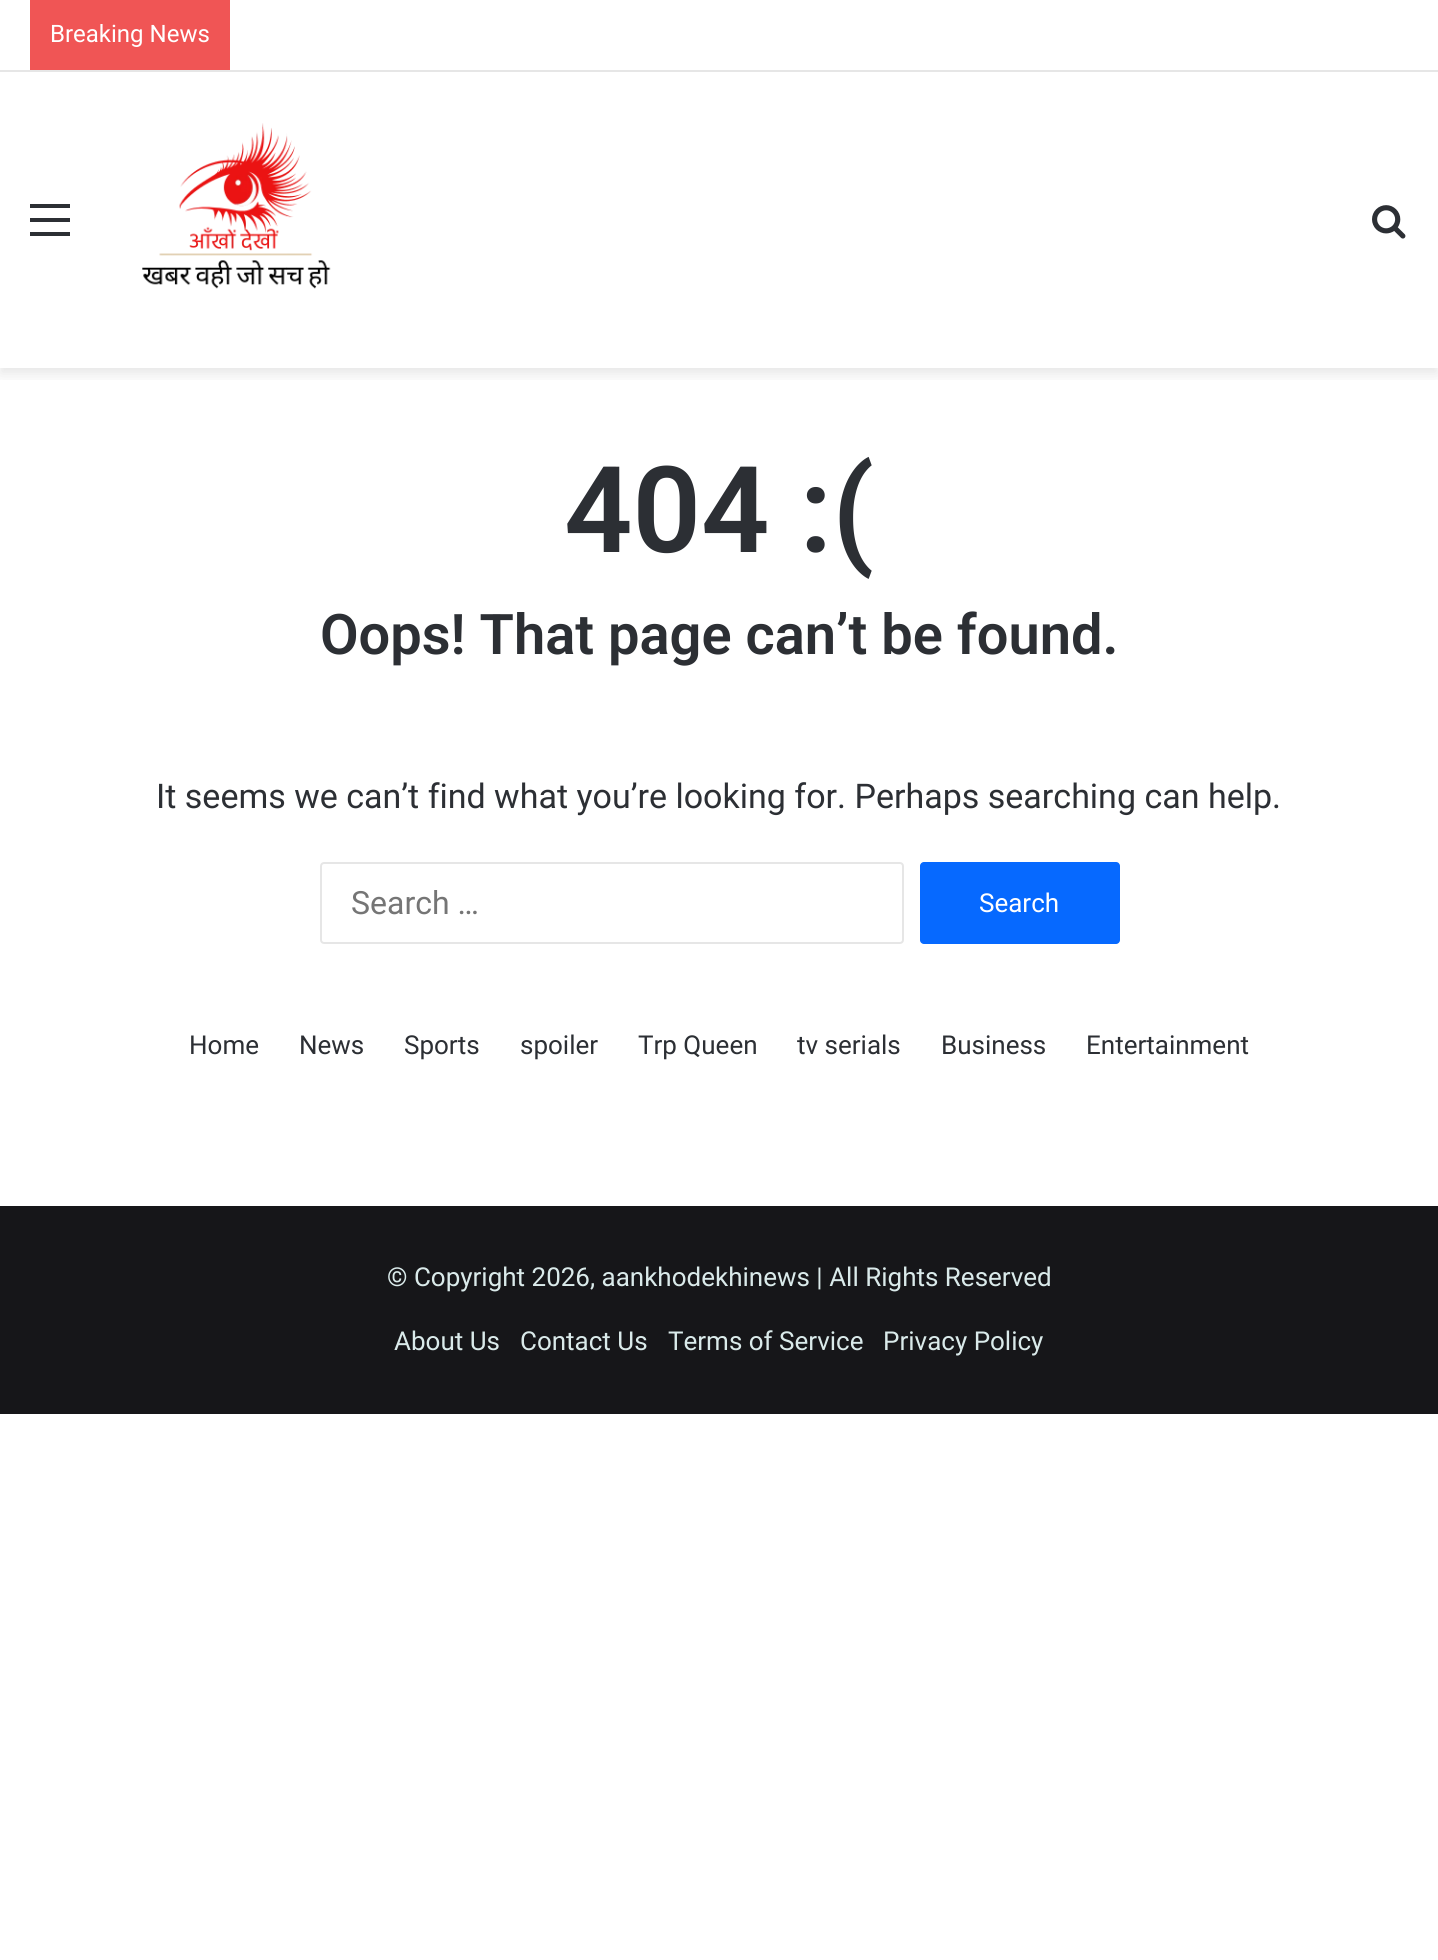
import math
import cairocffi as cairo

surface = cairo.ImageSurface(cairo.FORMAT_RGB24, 1438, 1960)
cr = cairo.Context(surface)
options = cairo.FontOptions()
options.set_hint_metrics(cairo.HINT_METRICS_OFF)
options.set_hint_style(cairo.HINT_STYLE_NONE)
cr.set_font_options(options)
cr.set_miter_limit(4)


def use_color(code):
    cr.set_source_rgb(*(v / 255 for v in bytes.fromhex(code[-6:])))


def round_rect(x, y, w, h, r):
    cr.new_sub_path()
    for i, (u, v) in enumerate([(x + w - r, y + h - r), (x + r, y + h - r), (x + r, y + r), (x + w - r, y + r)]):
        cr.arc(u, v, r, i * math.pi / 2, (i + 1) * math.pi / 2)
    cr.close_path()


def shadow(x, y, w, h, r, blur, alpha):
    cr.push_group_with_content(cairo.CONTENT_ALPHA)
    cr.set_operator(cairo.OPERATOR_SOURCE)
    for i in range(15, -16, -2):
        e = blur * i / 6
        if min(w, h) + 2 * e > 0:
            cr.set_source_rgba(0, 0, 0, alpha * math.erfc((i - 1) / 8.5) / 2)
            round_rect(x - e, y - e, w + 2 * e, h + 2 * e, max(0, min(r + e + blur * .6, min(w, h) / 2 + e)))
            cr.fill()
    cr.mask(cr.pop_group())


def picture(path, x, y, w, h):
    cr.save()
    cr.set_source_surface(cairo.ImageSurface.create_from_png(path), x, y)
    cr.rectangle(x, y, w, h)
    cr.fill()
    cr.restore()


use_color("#ffffff")
cr.paint()
cr.save()
cr.rectangle(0, 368, 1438, 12)
cr.clip()
use_color("#000000")
shadow(0, 78, 1438, 296, 0, 7, 0.1)
cr.restore()
use_color("#ffffff")
cr.rectangle(9, 69, 1420, 1)
cr.fill()
use_color("#e6e6e6")
cr.rectangle(0, 70, 1438, 2)
cr.fill()
use_color("#f05555")
cr.rectangle(30, 0, 200, 70)
cr.fill()
cr.select_font_face("Roboto")
cr.set_font_size(24)
use_color("#ffffff")
cr.move_to(50, 42)
cr.show_text("Breaking News")
use_color("#2c2f34")
cr.rectangle(30, 218, 40, 4)
cr.fill()
cr.rectangle(30, 204, 40, 4)
cr.fill()
cr.rectangle(30, 232, 40, 4)
cr.fill()
picture("img1.png", 142, 123, 189, 166)
picture("img2.png", 1372, 205, 34, 34)
cr.select_font_face("Roboto SemiBold")
cr.set_font_size(120)
cr.move_to(564, 552)
cr.show_text("404 :(")
cr.set_font_size(56)
cr.move_to(320, 654)
cr.show_text("Oops! That page can’t be found.")
cr.select_font_face("Roboto")
cr.set_font_size(34)
cr.move_to(156, 808)
cr.show_text("It seems we can’t find what you’re looking for. Perhaps searching can help.")
round_rect(321, 863, 582, 80, 3)
use_color("#e6e6e6")
cr.stroke()
cr.set_font_size(32)
use_color("#757575")
cr.move_to(351, 914)
cr.show_text("Search …")
use_color("#0669ff")
round_rect(920, 862, 200, 82, 4)
cr.fill()
cr.set_font_size(26)
use_color("#ffffff")
cr.move_to(979, 912)
cr.show_text("Search")
use_color("#2c2f34")
cr.move_to(189, 1054)
cr.show_text("Home")
cr.move_to(299, 1054)
cr.show_text("News")
cr.move_to(404, 1054)
cr.show_text("Sports")
cr.move_to(520, 1054)
cr.show_text("spoiler")
cr.move_to(638, 1054)
cr.show_text("Trp Queen")
cr.move_to(797, 1054)
cr.show_text("tv serials")
cr.move_to(941, 1054)
cr.show_text("Business")
cr.move_to(1086, 1054)
cr.show_text("Entertainment")
use_color("#161619")
cr.rectangle(0, 1206, 1438, 208)
cr.fill()
use_color("#daeaea")
cr.move_to(387, 1286)
cr.show_text("© Copyright 2026, aankhodekhinews | All Rights Reserved")
cr.move_to(394, 1350)
cr.show_text("About Us")
cr.move_to(520, 1350)
cr.show_text("Contact Us")
cr.move_to(668, 1350)
cr.show_text("Terms of Service")
cr.move_to(883, 1350)
cr.show_text("Privacy Policy")
surface.write_to_png("result.png")
